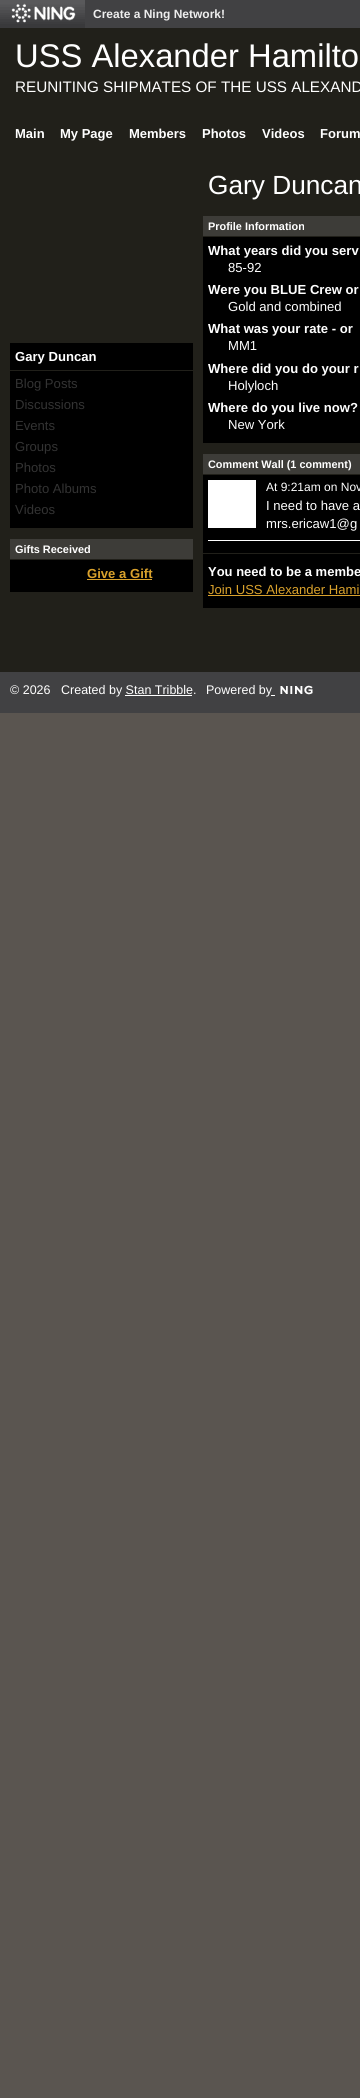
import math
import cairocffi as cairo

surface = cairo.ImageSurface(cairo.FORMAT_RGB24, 360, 2098)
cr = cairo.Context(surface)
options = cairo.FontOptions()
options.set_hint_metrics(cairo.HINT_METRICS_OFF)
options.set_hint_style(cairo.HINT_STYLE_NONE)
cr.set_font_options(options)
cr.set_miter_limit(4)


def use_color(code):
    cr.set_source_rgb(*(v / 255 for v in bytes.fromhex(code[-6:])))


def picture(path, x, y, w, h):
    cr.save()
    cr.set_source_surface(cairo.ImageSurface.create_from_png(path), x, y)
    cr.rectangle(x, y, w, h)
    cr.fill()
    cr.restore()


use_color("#5a5550")
cr.paint()
use_color("#414143")
cr.rectangle(0, 0, 360, 28)
cr.fill()
picture("img1.png", 0, 0, 85, 28)
picture("img2.png", 11, 3, 65, 20)
cr.select_font_face("Liberation Sans", cairo.FONT_SLANT_NORMAL, cairo.FONT_WEIGHT_BOLD)
cr.set_font_size(12)
use_color("#eeeeee")
cr.move_to(93, 18)
cr.show_text("Create a Ning Network!")
use_color("#21201a")
cr.rectangle(0, 28, 360, 644)
cr.fill()
cr.select_font_face("Liberation Sans")
cr.set_font_size(32.75)
use_color("#ffffff")
cr.move_to(15, 67)
cr.show_text("USS Alexander Hamilto")
cr.set_font_size(15.25)
cr.move_to(15, 92)
cr.show_text("REUNITING SHIPMATES OF THE USS ALEXAND")
cr.select_font_face("Liberation Sans", cairo.FONT_SLANT_NORMAL, cairo.FONT_WEIGHT_BOLD)
cr.set_font_size(13)
cr.move_to(15, 138)
cr.show_text("Main")
cr.move_to(60, 138)
cr.show_text("My Page")
cr.move_to(129, 138)
cr.show_text("Members")
cr.move_to(202, 138)
cr.show_text("Photos")
cr.move_to(262, 138)
cr.show_text("Videos")
cr.move_to(320, 138)
cr.show_text("Forum")
use_color("#000000")
cr.rectangle(10, 343, 183, 27)
cr.fill()
cr.set_font_size(13.1)
use_color("#ffffff")
cr.move_to(15, 361)
cr.show_text("Gary Duncan")
use_color("#000000")
cr.rectangle(10, 371, 183, 157)
cr.fill()
cr.select_font_face("Liberation Sans")
use_color("#333333")
cr.move_to(15, 388)
cr.show_text("Blog Posts")
cr.move_to(15, 409)
cr.show_text("Discussions")
cr.move_to(15, 430)
cr.show_text("Events")
cr.move_to(15, 451)
cr.show_text("Groups")
cr.move_to(15, 472)
cr.show_text("Photos")
cr.move_to(15, 493)
cr.show_text("Photo Albums")
cr.move_to(15, 514)
cr.show_text("Videos")
use_color("#3d3c38")
cr.rectangle(10, 539, 183, 20)
cr.fill()
cr.select_font_face("Liberation Sans", cairo.FONT_SLANT_NORMAL, cairo.FONT_WEIGHT_BOLD)
cr.set_font_size(10.9)
use_color("#ffffff")
cr.move_to(15, 553)
cr.show_text("Gifts Received")
use_color("#000000")
cr.rectangle(10, 560, 183, 32)
cr.fill()
cr.set_font_size(13.1)
use_color("#daa22c")
cr.move_to(87, 578)
cr.show_text("Give a Gift")
cr.rectangle(87, 579, 65, 1)
cr.fill()
cr.select_font_face("Liberation Sans")
cr.set_font_size(26.25)
use_color("#ffffff")
cr.move_to(208, 194)
cr.show_text("Gary Duncan")
use_color("#3d3c38")
cr.rectangle(203, 216, 157, 20)
cr.fill()
cr.select_font_face("Liberation Sans", cairo.FONT_SLANT_NORMAL, cairo.FONT_WEIGHT_BOLD)
cr.set_font_size(10.9)
use_color("#ffffff")
cr.move_to(208, 230)
cr.show_text("Profile Information")
use_color("#000000")
cr.rectangle(203, 237, 157, 206)
cr.fill()
cr.set_font_size(13.1)
use_color("#ffffff")
cr.move_to(208, 255)
cr.show_text("What years did you serv")
cr.select_font_face("Liberation Sans")
cr.move_to(228, 272)
cr.show_text("85-92")
cr.select_font_face("Liberation Sans", cairo.FONT_SLANT_NORMAL, cairo.FONT_WEIGHT_BOLD)
cr.move_to(208, 294)
cr.show_text("Were you BLUE Crew or")
cr.select_font_face("Liberation Sans")
cr.move_to(228, 311)
cr.show_text("Gold and combined")
cr.select_font_face("Liberation Sans", cairo.FONT_SLANT_NORMAL, cairo.FONT_WEIGHT_BOLD)
cr.move_to(208, 333)
cr.show_text("What was your rate - or")
cr.select_font_face("Liberation Sans")
cr.move_to(228, 350)
cr.show_text("MM1")
cr.select_font_face("Liberation Sans", cairo.FONT_SLANT_NORMAL, cairo.FONT_WEIGHT_BOLD)
cr.move_to(208, 373)
cr.show_text("Where did you do your r")
cr.select_font_face("Liberation Sans")
cr.move_to(228, 390)
cr.show_text("Holyloch")
cr.select_font_face("Liberation Sans", cairo.FONT_SLANT_NORMAL, cairo.FONT_WEIGHT_BOLD)
cr.move_to(208, 412)
cr.show_text("Where do you live now?")
cr.select_font_face("Liberation Sans")
cr.move_to(228, 429)
cr.show_text("New York")
use_color("#3d3c38")
cr.rectangle(203, 454, 157, 20)
cr.fill()
cr.select_font_face("Liberation Sans", cairo.FONT_SLANT_NORMAL, cairo.FONT_WEIGHT_BOLD)
cr.set_font_size(10.9)
use_color("#ffffff")
cr.move_to(208, 468)
cr.show_text("Comment Wall (1 comment)")
use_color("#000000")
cr.rectangle(203, 475, 157, 78)
cr.fill()
use_color("#ffffff")
cr.rectangle(208, 540, 152, 1)
cr.fill()
cr.rectangle(208, 480, 48, 48)
cr.fill()
cr.select_font_face("Liberation Sans")
cr.set_font_size(12)
cr.move_to(266, 491)
cr.show_text("At 9:21am on Nov")
cr.set_font_size(13.1)
cr.move_to(266, 510)
cr.show_text("I need to have a")
cr.move_to(266, 528)
cr.show_text("mrs.ericaw1@g")
use_color("#000000")
cr.rectangle(203, 554, 157, 54)
cr.fill()
cr.select_font_face("Liberation Sans", cairo.FONT_SLANT_NORMAL, cairo.FONT_WEIGHT_BOLD)
cr.set_font_size(13)
use_color("#ffffff")
cr.move_to(208, 576)
cr.show_text("You need to be a membe")
cr.select_font_face("Liberation Sans")
cr.set_font_size(13.1)
use_color("#daa22c")
cr.move_to(208, 594)
cr.show_text("Join USS Alexander Hami")
cr.rectangle(208, 595, 152, 1)
cr.fill()
use_color("#414143")
cr.rectangle(0, 672, 360, 41)
cr.fill()
cr.set_font_size(12.5)
use_color("#ffffff")
cr.move_to(10, 694)
cr.show_text("© 2026")
cr.move_to(61, 694)
cr.show_text("Created by Stan Tribble.")
cr.move_to(206, 694)
cr.show_text("Powered by")
picture("img3.png", 280, 685, 33, 10)
cr.rectangle(125, 695, 67, 1)
cr.fill()
cr.rectangle(271, 695, 4, 1)
cr.fill()
surface.write_to_png("result.png")
